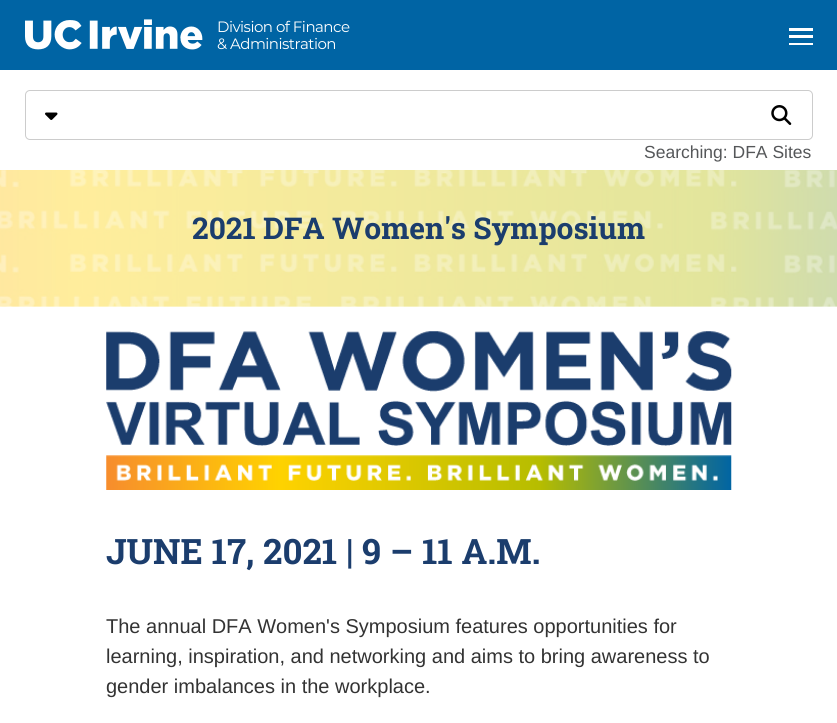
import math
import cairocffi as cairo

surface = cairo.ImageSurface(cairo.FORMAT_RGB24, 837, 723)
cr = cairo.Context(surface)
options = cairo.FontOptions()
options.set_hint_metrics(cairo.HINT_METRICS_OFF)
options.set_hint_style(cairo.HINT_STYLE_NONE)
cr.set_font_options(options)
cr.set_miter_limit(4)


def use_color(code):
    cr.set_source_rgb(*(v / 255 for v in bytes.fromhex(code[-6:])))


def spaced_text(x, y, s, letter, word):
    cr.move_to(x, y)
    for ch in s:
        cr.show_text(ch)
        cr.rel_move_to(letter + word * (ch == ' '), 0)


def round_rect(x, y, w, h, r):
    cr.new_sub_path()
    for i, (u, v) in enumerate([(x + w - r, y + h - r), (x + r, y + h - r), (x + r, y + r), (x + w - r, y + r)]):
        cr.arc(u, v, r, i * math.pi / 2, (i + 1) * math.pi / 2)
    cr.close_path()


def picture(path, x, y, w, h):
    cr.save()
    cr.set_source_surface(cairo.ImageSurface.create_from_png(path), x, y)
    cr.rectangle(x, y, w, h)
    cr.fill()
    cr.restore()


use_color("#ffffff")
cr.paint()
use_color("#0064a4")
cr.rectangle(0, 0, 837, 70)
cr.fill()
picture("img1.png", 25, 19, 178, 31)
cr.select_font_face("Montserrat Thin")
cr.set_font_size(15)
use_color("#ffffff")
spaced_text(217, 32, "Division of Finance", -0.5, 0)
spaced_text(217, 49, "& Administration", -0.5, 0)
round_rect(25.5, 90.5, 787, 49, 4.5)
use_color("#cccccc")
cr.set_line_width(1)
cr.stroke()
picture("img2.png", 45, 112, 13, 8)
picture("img3.png", 771, 105, 21, 20)
cr.select_font_face("Liberation Sans")
cr.set_font_size(17.5)
use_color("#555759")
cr.move_to(644, 158)
cr.show_text("Searching: DFA Sites")
use_color("#ffffff")
cr.rectangle(789, 28, 24, 3)
cr.fill()
cr.rectangle(789, 35, 24, 3)
cr.fill()
cr.rectangle(789, 43, 24, 2)
cr.fill()
picture("img4.png", 0, 170, 837, 137)
cr.select_font_face("Roboto Slab", cairo.FONT_SLANT_NORMAL, cairo.FONT_WEIGHT_BOLD)
cr.set_font_size(30)
use_color("#1b3d6d")
cr.move_to(192, 239)
cr.show_text("2021 DFA Women's Symposium")
picture("img5.png", 106, 331, 626, 159)
cr.set_font_size(35)
cr.move_to(106, 564)
cr.show_text("JUNE 17, 2021 | 9 – 11 A.M.")
cr.select_font_face("Liberation Sans")
cr.set_font_size(20)
use_color("#333333")
cr.move_to(106, 633)
cr.show_text("The annual DFA Women's Symposium features opportunities for")
cr.move_to(106, 663)
cr.show_text("learning, inspiration, and networking and aims to bring awareness to")
cr.move_to(106, 693)
cr.show_text("gender imbalances in the workplace.")
surface.write_to_png("result.png")
